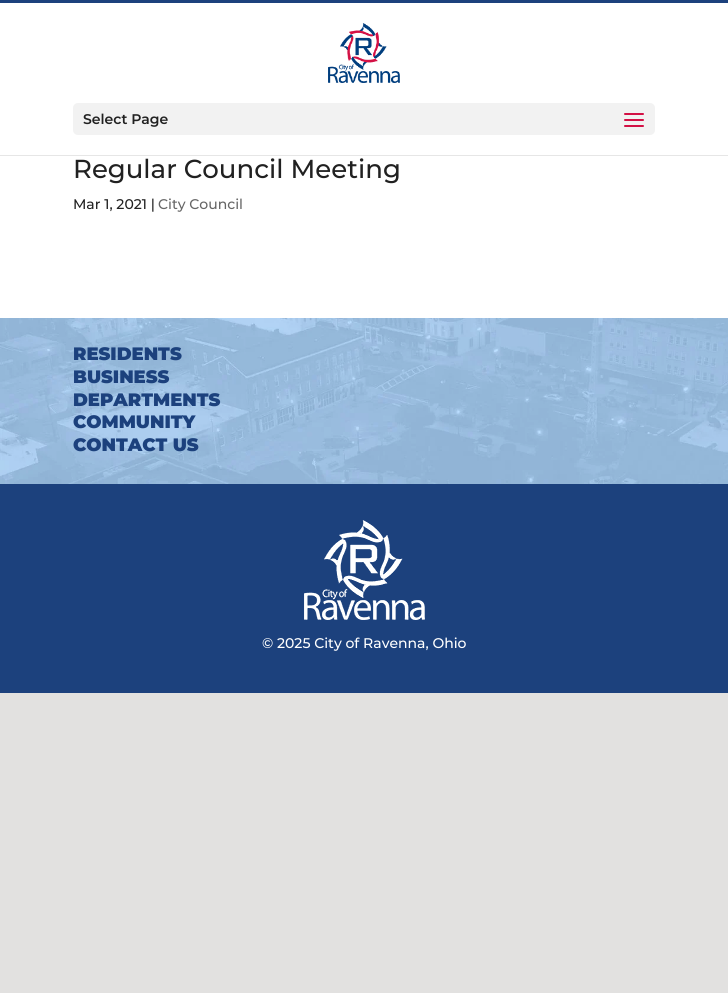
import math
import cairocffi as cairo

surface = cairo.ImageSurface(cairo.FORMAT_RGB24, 728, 993)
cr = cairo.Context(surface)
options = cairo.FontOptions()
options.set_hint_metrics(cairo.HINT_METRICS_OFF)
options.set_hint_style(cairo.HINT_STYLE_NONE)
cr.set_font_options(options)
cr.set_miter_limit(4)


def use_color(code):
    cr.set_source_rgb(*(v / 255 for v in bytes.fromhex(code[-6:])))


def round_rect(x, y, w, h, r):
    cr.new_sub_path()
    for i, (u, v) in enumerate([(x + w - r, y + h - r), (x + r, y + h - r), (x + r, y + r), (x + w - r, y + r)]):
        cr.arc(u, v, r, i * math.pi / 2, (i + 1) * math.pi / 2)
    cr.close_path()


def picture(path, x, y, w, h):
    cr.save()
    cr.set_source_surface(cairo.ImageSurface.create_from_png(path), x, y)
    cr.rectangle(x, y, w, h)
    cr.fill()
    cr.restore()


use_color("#e2e1e0")
cr.paint()
use_color("#e6e6e6")
cr.rectangle(0, 155, 728, 1)
cr.fill()
use_color("#ffffff")
cr.rectangle(0, 3, 728, 152)
cr.fill()
use_color("#1c417d")
cr.rectangle(0, 0, 728, 3)
cr.fill()
picture("img1.png", 328, 23, 72, 60)
use_color("#f2f2f2")
round_rect(73, 103, 582, 32, 5)
cr.fill()
cr.select_font_face("Montserrat SemiBold")
cr.set_font_size(14)
use_color("#212121")
cr.move_to(83, 124)
cr.show_text("Select Page")
picture("img2.png", 624, 113, 20, 14)
use_color("#ffffff")
cr.rectangle(0, 156, 728, 162)
cr.fill()
cr.select_font_face("Montserrat Medium")
cr.set_font_size(26)
use_color("#212121")
cr.move_to(73, 178)
cr.show_text("Regular Council Meeting")
cr.set_font_size(14)
cr.move_to(73, 209)
cr.show_text("Mar 1, 2021 |")
use_color("#666666")
cr.move_to(158, 209)
cr.show_text("City Council")
use_color("#1c417d")
cr.rectangle(0, 484, 728, 209)
cr.fill()
picture("img3.png", 0, 318, 728, 166)
cr.select_font_face("Montserrat Black")
cr.set_font_size(18)
cr.move_to(73, 360)
cr.show_text("RESIDENTS")
cr.move_to(73, 383)
cr.show_text("BUSINESS")
cr.move_to(73, 406)
cr.show_text("DEPARTMENTS")
cr.move_to(73, 428)
cr.show_text("COMMUNITY")
cr.move_to(73, 451)
cr.show_text("CONTACT US")
picture("img4.png", 304, 520, 121, 100)
cr.select_font_face("Montserrat Medium")
cr.set_font_size(14)
use_color("#ffffff")
cr.move_to(262, 648)
cr.show_text("© 2025 City of Ravenna, Ohio")
surface.write_to_png("result.png")
